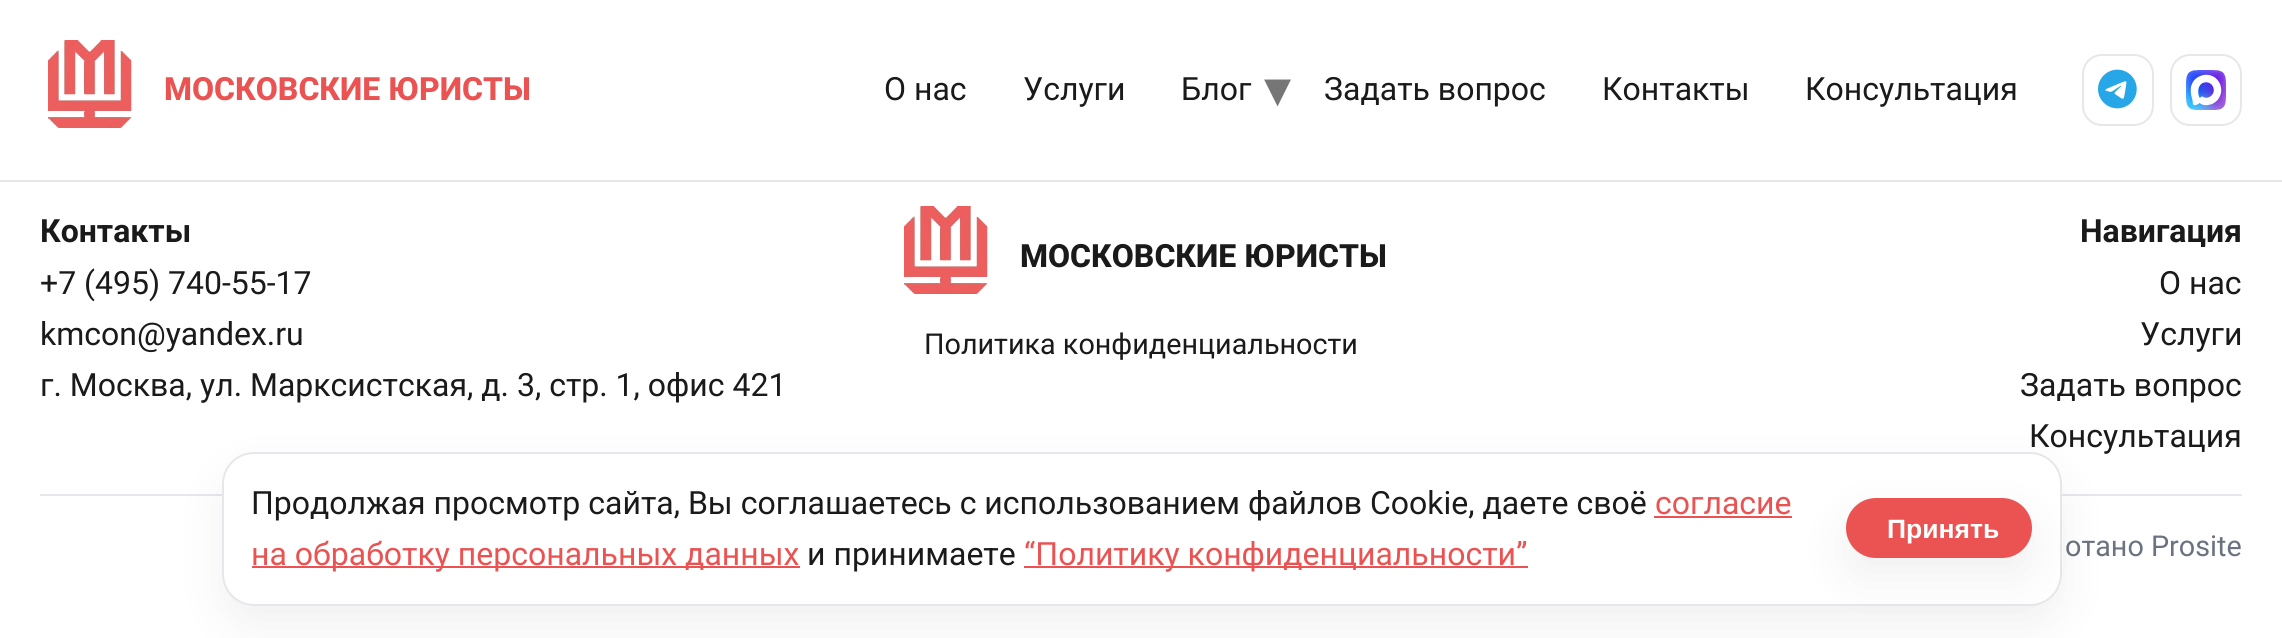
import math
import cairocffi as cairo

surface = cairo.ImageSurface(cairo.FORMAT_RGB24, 2282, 638)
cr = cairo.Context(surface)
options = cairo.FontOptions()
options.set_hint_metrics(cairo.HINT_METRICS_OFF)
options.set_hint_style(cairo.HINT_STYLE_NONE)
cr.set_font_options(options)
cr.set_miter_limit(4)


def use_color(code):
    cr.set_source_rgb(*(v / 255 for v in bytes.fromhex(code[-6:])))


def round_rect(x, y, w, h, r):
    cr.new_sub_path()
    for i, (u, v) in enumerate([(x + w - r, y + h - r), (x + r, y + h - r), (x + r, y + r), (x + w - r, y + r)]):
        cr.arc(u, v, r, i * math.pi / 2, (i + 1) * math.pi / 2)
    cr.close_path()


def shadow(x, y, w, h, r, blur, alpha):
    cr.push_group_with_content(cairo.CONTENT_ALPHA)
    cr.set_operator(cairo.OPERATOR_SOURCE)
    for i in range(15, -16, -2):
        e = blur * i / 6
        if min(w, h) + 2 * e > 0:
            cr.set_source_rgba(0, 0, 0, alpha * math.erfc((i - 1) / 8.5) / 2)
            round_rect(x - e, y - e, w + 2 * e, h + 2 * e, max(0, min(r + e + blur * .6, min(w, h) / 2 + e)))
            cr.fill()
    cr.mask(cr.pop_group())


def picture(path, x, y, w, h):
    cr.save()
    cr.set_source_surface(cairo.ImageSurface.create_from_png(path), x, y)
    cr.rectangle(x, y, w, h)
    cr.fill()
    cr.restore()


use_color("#ffffff")
cr.paint()
use_color("#e5e7eb")
cr.rectangle(0, 180, 2282, 2)
cr.fill()
picture("img1.png", 48, 40, 84, 88)
cr.select_font_face("Roboto ExtraBold")
cr.set_font_size(32)
use_color("#eb5353")
cr.move_to(164, 100)
cr.show_text("МОСКОВСКИЕ ЮРИСТЫ")
cr.select_font_face("Roboto")
use_color("#1a1a1a")
cr.move_to(884, 100)
cr.show_text("О нас")
cr.move_to(1023, 100)
cr.show_text("Услуги")
cr.move_to(1181, 100)
cr.show_text("Блог")
cr.select_font_face("DejaVu Sans")
cr.set_font_size(54)
use_color("#767676")
cr.move_to(1264, 107)
cr.show_text("▾")
cr.select_font_face("Roboto")
cr.set_font_size(32)
use_color("#1a1a1a")
cr.move_to(1324, 100)
cr.show_text("Задать вопрос")
cr.move_to(1602, 100)
cr.show_text("Контакты")
cr.move_to(1805, 100)
cr.show_text("Консультация")
round_rect(2083, 55, 70, 70, 19)
use_color("#e5e7eb")
cr.stroke()
picture("img2.png", 2098, 69, 39, 40)
round_rect(2171, 55, 70, 70, 19)
cr.stroke()
picture("img3.png", 2186, 70, 40, 40)
cr.select_font_face("Roboto", cairo.FONT_SLANT_NORMAL, cairo.FONT_WEIGHT_BOLD)
use_color("#1a1a1a")
cr.move_to(40, 242)
cr.show_text("Контакты")
cr.select_font_face("Roboto")
cr.move_to(40, 294)
cr.show_text("+7 (495) 740‑55‑17")
cr.move_to(40, 345)
cr.show_text("kmcon@yandex.ru")
cr.move_to(40, 396)
cr.show_text("г. Москва, ул. Марксистская, д. 3, стр. 1, офис 421")
picture("img4.png", 904, 206, 84, 88)
cr.select_font_face("Roboto ExtraBold")
cr.move_to(1020, 267)
cr.show_text("МОСКОВСКИЕ ЮРИСТЫ")
cr.select_font_face("Roboto")
cr.set_font_size(28.75)
cr.move_to(924, 354)
cr.show_text("Политика конфиденциальности")
cr.select_font_face("Roboto", cairo.FONT_SLANT_NORMAL, cairo.FONT_WEIGHT_BOLD)
cr.set_font_size(32)
cr.move_to(2080, 242)
cr.show_text("Навигация")
cr.select_font_face("Roboto")
cr.move_to(2159, 294)
cr.show_text("О нас")
cr.move_to(2140, 345)
cr.show_text("Услуги")
cr.move_to(2020, 396)
cr.show_text("Задать вопрос")
cr.move_to(2029, 447)
cr.show_text("Консультация")
use_color("#e5e7eb")
cr.rectangle(40, 494, 2202, 2)
cr.fill()
cr.set_font_size(28.75)
use_color("#6b7280")
cr.move_to(2065, 556)
cr.show_text("отано Prosite")
use_color("#000000")
shadow(222, 472, 1840, 154, 32, 25, 0.06)
use_color("#ffffff")
round_rect(223, 453, 1838, 152, 31)
cr.fill_preserve()
use_color("#e5e7eb")
cr.stroke()
cr.set_font_size(32)
use_color("#1a1a1a")
cr.move_to(251, 514)
cr.show_text("Продолжая просмотр сайта, Вы соглашаетесь с использованием файлов Cookie, даете своё")
use_color("#eb5353")
cr.move_to(1655, 514)
cr.show_text("согласие")
cr.rectangle(1654, 516, 138, 2)
cr.fill()
cr.rectangle(252, 566, 548, 2)
cr.fill()
cr.move_to(251, 565)
cr.show_text("на обработку персональных данных")
use_color("#1a1a1a")
cr.move_to(807, 565)
cr.show_text("и принимаете")
use_color("#eb5353")
cr.rectangle(1024, 566, 504, 2)
cr.fill()
cr.move_to(1024, 565)
cr.show_text("“Политику конфиденциальности”")
use_color("#000000")
shadow(1846, 518, 186, 60, 30, 25, 0.06)
use_color("#eb5353")
round_rect(1847, 499, 184, 58, 29)
cr.fill_preserve()
cr.stroke()
cr.select_font_face("Liberation Sans", cairo.FONT_SLANT_NORMAL, cairo.FONT_WEIGHT_BOLD)
cr.set_font_size(26.5)
use_color("#ffffff")
cr.move_to(1887, 538)
cr.show_text("Принять")
surface.write_to_png("result.png")
